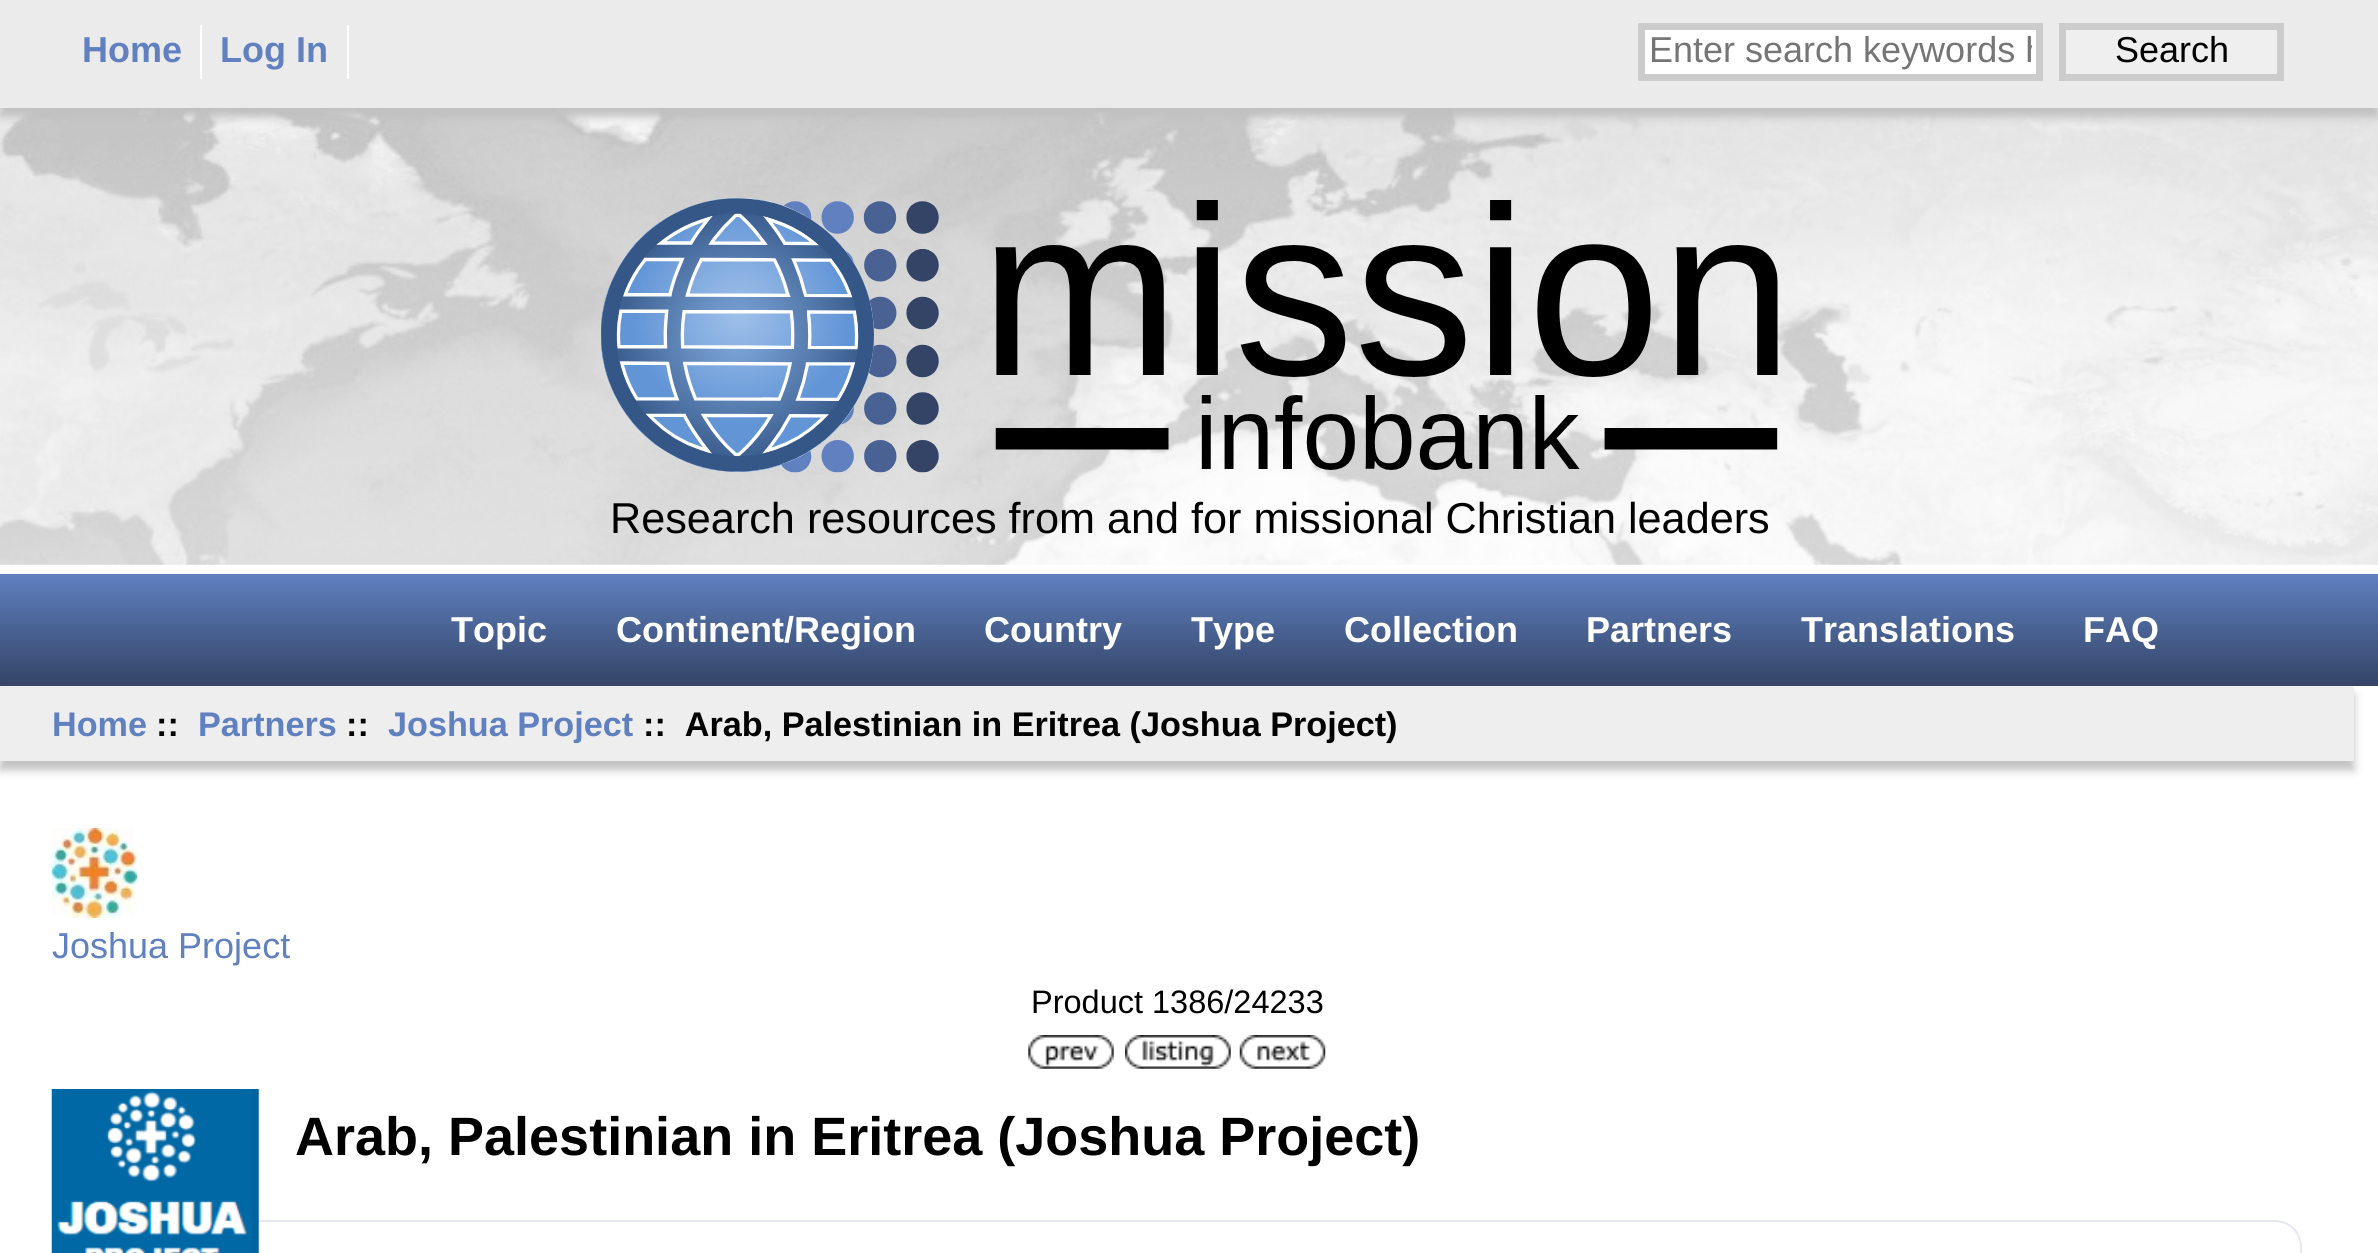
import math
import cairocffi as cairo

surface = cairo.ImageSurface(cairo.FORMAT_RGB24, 2378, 1253)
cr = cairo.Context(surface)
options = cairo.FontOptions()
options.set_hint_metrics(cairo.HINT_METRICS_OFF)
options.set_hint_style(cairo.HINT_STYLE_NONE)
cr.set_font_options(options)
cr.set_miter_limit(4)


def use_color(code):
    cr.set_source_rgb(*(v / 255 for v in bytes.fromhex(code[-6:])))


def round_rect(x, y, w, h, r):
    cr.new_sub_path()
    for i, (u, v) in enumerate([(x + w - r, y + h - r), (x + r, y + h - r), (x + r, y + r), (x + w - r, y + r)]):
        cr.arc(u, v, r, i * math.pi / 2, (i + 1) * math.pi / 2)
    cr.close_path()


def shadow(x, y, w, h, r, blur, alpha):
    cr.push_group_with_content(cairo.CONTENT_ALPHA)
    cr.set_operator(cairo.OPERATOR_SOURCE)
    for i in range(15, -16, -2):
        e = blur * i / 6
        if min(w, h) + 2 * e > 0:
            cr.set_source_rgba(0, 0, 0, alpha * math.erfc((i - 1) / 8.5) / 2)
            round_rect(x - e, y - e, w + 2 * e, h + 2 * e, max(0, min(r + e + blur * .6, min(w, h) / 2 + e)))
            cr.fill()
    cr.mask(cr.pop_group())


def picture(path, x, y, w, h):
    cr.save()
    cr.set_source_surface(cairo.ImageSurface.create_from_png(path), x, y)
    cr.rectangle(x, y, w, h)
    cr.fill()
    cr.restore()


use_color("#ffffff")
cr.paint()
picture("img1.png", 0, 108, 2378, 457)
use_color("#c0c0c0")
shadow(0, 9, 2378, 108, 0, 4.5, 1)
use_color("#ebebeb")
cr.rectangle(0, 0, 2378, 108)
cr.fill()
use_color("#ffffff")
cr.rectangle(200, 25, 2, 54)
cr.fill()
cr.select_font_face("Liberation Sans", cairo.FONT_SLANT_NORMAL, cairo.FONT_WEIGHT_BOLD)
cr.set_font_size(36)
use_color("#6080c0")
cr.move_to(82, 62)
cr.show_text("Home")
use_color("#ffffff")
cr.rectangle(347, 25, 2, 54)
cr.fill()
use_color("#6080c0")
cr.move_to(220, 62)
cr.show_text("Log In")
use_color("#ffffff")
cr.rectangle(1641.5, 26.5, 398, 51)
cr.fill_preserve()
use_color("#cccccc")
cr.set_line_width(7)
cr.stroke()
cr.save()
cr.rectangle(1649, 32, 383, 40)
cr.clip()
cr.select_font_face("Liberation Sans")
use_color("#757575")
cr.move_to(1649, 62)
cr.show_text("Enter search keywords h")
cr.restore()
use_color("#efefef")
cr.rectangle(2062.5, 26.5, 218, 51)
cr.fill_preserve()
use_color("#cccccc")
cr.stroke()
cr.select_font_face("Liberation Sans")
use_color("#000000")
cr.move_to(2115, 62)
cr.show_text("Search")
picture("img2.png", 601, 198, 1177, 275)
cr.set_font_size(43.2)
cr.move_to(610, 533)
cr.show_text("Research resources from and for missional Christian leaders")
gradient = cairo.LinearGradient(1189, 574, 1189, 686)
gradient.add_color_stop_rgba(0, 0.376, 0.502, 0.753, 1)
gradient.add_color_stop_rgba(1, 0.2, 0.267, 0.4, 1)
cr.set_source(gradient)
cr.rectangle(0, 574, 2378, 112)
cr.fill()
cr.select_font_face("Liberation Sans", cairo.FONT_SLANT_NORMAL, cairo.FONT_WEIGHT_BOLD)
cr.set_font_size(36)
use_color("#ffffff")
cr.move_to(451, 642)
cr.show_text("Topic")
cr.move_to(616, 642)
cr.show_text("Continent/Region")
cr.move_to(984, 642)
cr.show_text("Country")
cr.move_to(1191, 642)
cr.show_text("Type")
cr.move_to(1344, 642)
cr.show_text("Collection")
cr.move_to(1586, 642)
cr.show_text("Partners")
cr.move_to(1801, 642)
cr.show_text("Translations")
cr.move_to(2083, 642)
cr.show_text("FAQ")
use_color("#c0c0c0")
shadow(0, 695, 2354, 75, 0, 4.5, 1)
use_color("#eeeeee")
cr.rectangle(0, 686, 2354, 75)
cr.fill()
cr.set_font_size(34.2)
use_color("#6080c0")
cr.move_to(52, 736)
cr.show_text("Home")
use_color("#000000")
cr.move_to(156, 736)
cr.show_text("::")
use_color("#6080c0")
cr.move_to(198, 736)
cr.show_text("Partners")
use_color("#000000")
cr.move_to(346, 736)
cr.show_text("::")
use_color("#6080c0")
cr.move_to(388, 736)
cr.show_text("Joshua Project")
use_color("#000000")
cr.move_to(643, 736)
cr.show_text("::  Arab, Palestinian in Eritrea (Joshua Project)")
picture("img3.png", 51, 828, 87, 90)
cr.select_font_face("Liberation Sans")
cr.set_font_size(36)
use_color("#6080c0")
cr.move_to(52, 958)
cr.show_text("Joshua Project")
cr.set_font_size(32.5)
use_color("#000000")
cr.move_to(1031, 1013)
cr.show_text("Product 1386/24233")
picture("img4.png", 1028, 1035, 86, 34)
picture("img5.png", 1125, 1035, 106, 34)
picture("img6.png", 1239, 1035, 87, 34)
round_rect(53, 1221, 2248, 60, 26)
use_color("#e6e8ef")
cr.set_line_width(2)
cr.stroke()
picture("img7.png", 51, 1089, 208, 164)
cr.select_font_face("Liberation Sans", cairo.FONT_SLANT_NORMAL, cairo.FONT_WEIGHT_BOLD)
cr.set_font_size(54)
use_color("#000000")
cr.move_to(295, 1155)
cr.show_text("Arab, Palestinian in Eritrea (Joshua Project)")
surface.write_to_png("result.png")
